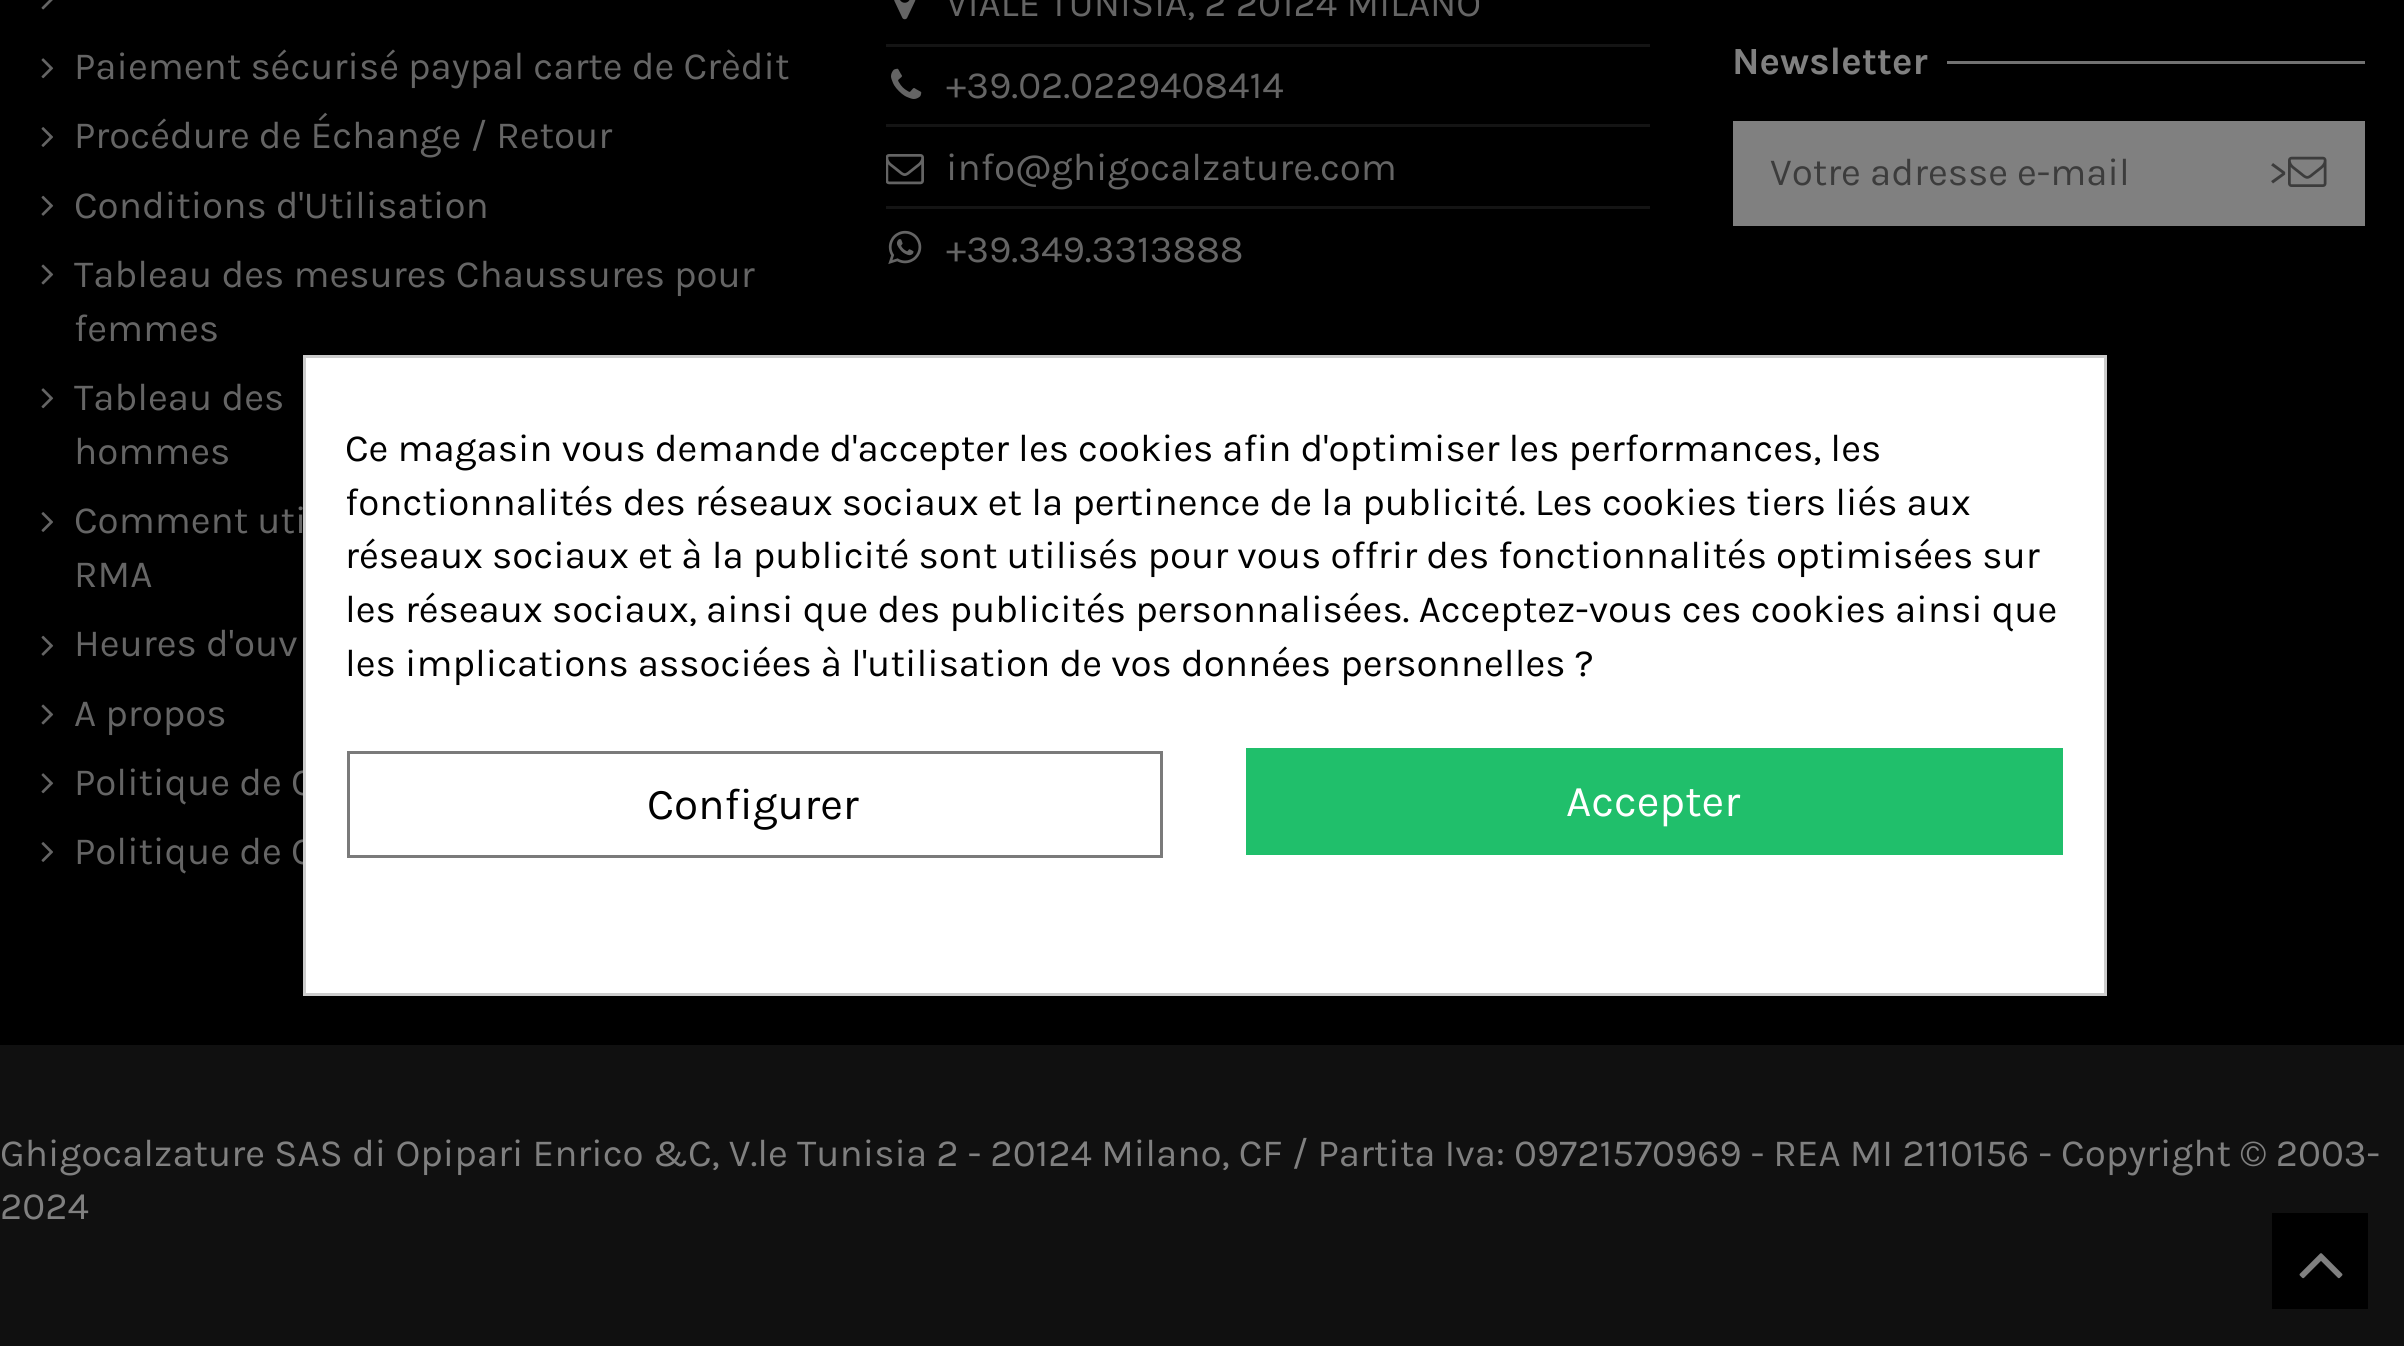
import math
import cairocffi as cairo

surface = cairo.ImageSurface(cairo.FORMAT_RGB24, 2404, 1346)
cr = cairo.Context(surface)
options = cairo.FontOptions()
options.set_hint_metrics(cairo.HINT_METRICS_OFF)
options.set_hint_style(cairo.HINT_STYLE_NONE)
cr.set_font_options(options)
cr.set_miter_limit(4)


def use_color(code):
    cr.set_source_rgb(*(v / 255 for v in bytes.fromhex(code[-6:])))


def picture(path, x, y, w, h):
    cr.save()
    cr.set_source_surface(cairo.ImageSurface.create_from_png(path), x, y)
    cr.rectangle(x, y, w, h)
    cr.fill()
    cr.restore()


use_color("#000000")
cr.paint()
picture("img1.png", 41, 0, 12, 10)
picture("img2.png", 41, 58, 13, 21)
cr.select_font_face("Karla")
cr.set_font_size(38.5)
use_color("#656565")
cr.move_to(74, 79)
cr.show_text("Paiement sécurisé paypal carte de Crèdit")
picture("img3.png", 41, 127, 12, 20)
cr.move_to(74, 148)
cr.show_text("Procédure de Échange / Retour")
picture("img4.png", 41, 195, 13, 21)
cr.move_to(74, 218)
cr.show_text("Conditions d'Utilisation")
picture("img5.png", 41, 264, 13, 21)
cr.move_to(74, 287)
cr.show_text("Tableau des mesures Chaussures pour")
cr.move_to(74, 341)
cr.show_text("femmes")
picture("img2.png", 41, 388, 13, 21)
cr.move_to(74, 410)
cr.show_text("Tableau des")
cr.move_to(74, 464)
cr.show_text("hommes")
picture("img3.png", 41, 512, 12, 20)
cr.move_to(74, 533)
cr.show_text("Comment uti")
cr.move_to(74, 587)
cr.show_text("RMA")
picture("img4.png", 41, 635, 13, 21)
cr.move_to(74, 656)
cr.show_text("Heures d'ouv")
picture("img5.png", 41, 704, 13, 21)
cr.move_to(74, 726)
cr.show_text("A propos")
picture("img2.png", 41, 773, 13, 21)
cr.move_to(74, 795)
cr.show_text("Politique de C")
picture("img3.png", 41, 842, 12, 20)
cr.move_to(74, 864)
cr.show_text("Politique de C")
picture("img6.png", 894, 0, 22, 20)
cr.move_to(946, 16)
cr.show_text("VIALE TUNISIA, 2 20124 MILANO")
use_color("#141414")
cr.rectangle(886, 44, 764, 3)
cr.fill()
picture("img7.png", 891, 68, 31, 31)
use_color("#656565")
cr.move_to(946, 98)
cr.show_text("+39.02.0229408414")
use_color("#141414")
cr.rectangle(886, 124, 764, 3)
cr.fill()
picture("img8.png", 886, 154, 38, 31)
use_color("#656565")
cr.move_to(946, 180)
cr.show_text("info@ghigocalzature.com")
use_color("#141414")
cr.rectangle(886, 206, 764, 3)
cr.fill()
picture("img9.png", 888, 230, 34, 35)
use_color("#656565")
cr.move_to(946, 262)
cr.show_text("+39.349.3313888")
cr.select_font_face("Karla", cairo.FONT_SLANT_NORMAL, cairo.FONT_WEIGHT_BOLD)
use_color("#808080")
cr.move_to(1732, 74)
cr.show_text("Newsletter")
use_color("#727272")
cr.rectangle(1947, 61, 418, 3)
cr.fill()
use_color("#808080")
cr.rectangle(1733, 121, 632, 105)
cr.fill()
cr.select_font_face("Karla")
use_color("#3c3c3c")
cr.move_to(1770, 185)
cr.show_text("Votre adresse e-mail")
cr.move_to(2268, 185)
cr.show_text(">")
picture("img10.png", 2288, 156, 39, 31)
use_color("#101010")
cr.rectangle(0, 1045, 2404, 301)
cr.fill()
use_color("#808080")
cr.move_to(0, 1166)
cr.show_text("Ghigocalzature SAS di Opipari Enrico &C, V.le Tunisia 2 - 20124 Milano, CF / Partita Iva: 09721570969 - REA MI 2110156 - Copyright © 2003-")
cr.move_to(0, 1219)
cr.show_text("2024")
use_color("#ffffff")
cr.rectangle(304.5, 356.5, 1801, 638)
cr.fill_preserve()
use_color("#cccccc")
cr.set_line_width(3)
cr.stroke()
cr.save()
cr.rectangle(347, 424, 1716, 269)
cr.clip()
use_color("#000000")
cr.move_to(345, 461)
cr.show_text("Ce magasin vous demande d'accepter les cookies afin d'optimiser les performances, les")
cr.move_to(345, 515)
cr.show_text("fonctionnalités des réseaux sociaux et la pertinence de la publicité. Les cookies tiers liés aux")
cr.restore()
use_color("#000000")
cr.move_to(345, 568)
cr.show_text("réseaux sociaux et à la publicité sont utilisés pour vous offrir des fonctionnalités optimisées sur")
cr.move_to(345, 622)
cr.show_text("les réseaux sociaux, ainsi que des publicités personnalisées. Acceptez-vous ces cookies ainsi que")
cr.move_to(345, 676)
cr.show_text("les implications associées à l'utilisation de vos données personnelles ?")
cr.rectangle(348.5, 752.5, 813, 104)
use_color("#7a7a7a")
cr.stroke()
cr.set_font_size(44)
use_color("#000000")
cr.move_to(647, 819)
cr.show_text("Configurer")
use_color("#20bf6b")
cr.rectangle(1246, 748, 817, 107)
cr.fill()
use_color("#ffffff")
cr.move_to(1566, 816)
cr.show_text("Accepter")
use_color("#000000")
cr.rectangle(2272, 1213, 96, 96)
cr.fill()
picture("img11.png", 2299, 1253, 44, 26)
surface.write_to_png("result.png")
